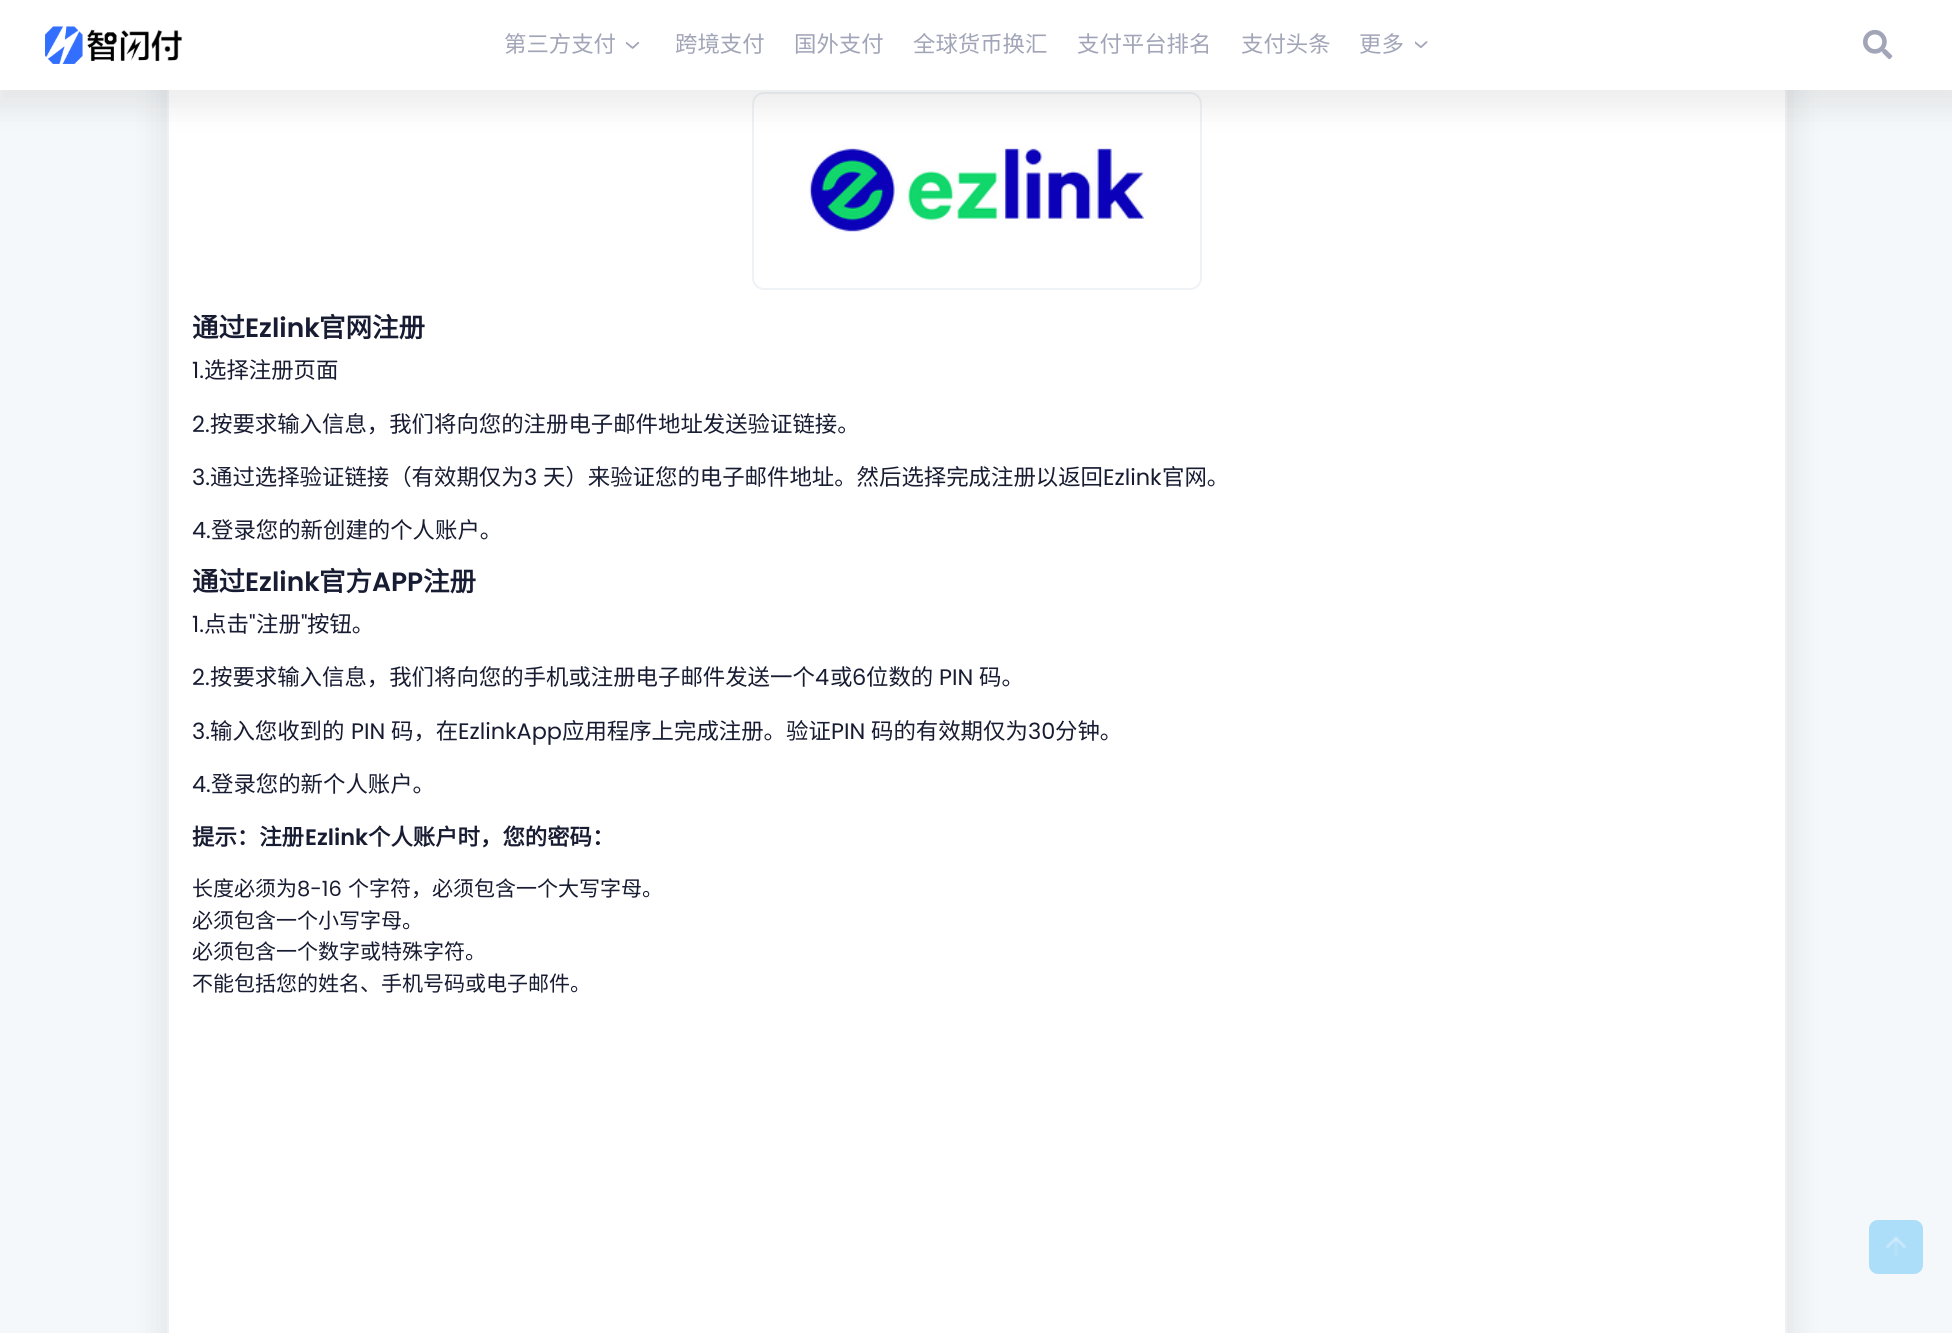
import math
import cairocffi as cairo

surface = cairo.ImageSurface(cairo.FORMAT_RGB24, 1952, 1333)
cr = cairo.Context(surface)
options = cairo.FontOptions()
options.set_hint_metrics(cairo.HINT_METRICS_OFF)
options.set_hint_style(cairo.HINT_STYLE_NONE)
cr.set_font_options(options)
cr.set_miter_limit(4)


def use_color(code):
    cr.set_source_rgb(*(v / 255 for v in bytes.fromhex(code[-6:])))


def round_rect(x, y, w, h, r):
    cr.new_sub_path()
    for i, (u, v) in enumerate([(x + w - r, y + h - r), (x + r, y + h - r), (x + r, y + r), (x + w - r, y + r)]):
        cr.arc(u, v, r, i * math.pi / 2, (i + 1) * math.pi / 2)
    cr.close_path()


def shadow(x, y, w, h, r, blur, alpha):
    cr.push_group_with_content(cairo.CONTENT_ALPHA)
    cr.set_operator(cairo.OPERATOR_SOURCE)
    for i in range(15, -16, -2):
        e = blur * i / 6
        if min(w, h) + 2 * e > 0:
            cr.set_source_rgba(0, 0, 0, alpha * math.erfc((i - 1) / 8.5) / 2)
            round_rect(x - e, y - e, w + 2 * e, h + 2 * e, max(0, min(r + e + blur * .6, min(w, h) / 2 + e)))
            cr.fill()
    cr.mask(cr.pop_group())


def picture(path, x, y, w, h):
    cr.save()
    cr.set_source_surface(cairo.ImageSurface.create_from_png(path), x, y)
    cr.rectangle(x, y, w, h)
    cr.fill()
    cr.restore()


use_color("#f5f8fa")
cr.paint()
use_color("#000000")
shadow(158, -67, 1639, 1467, 23, 14.5, 0.07)
use_color("#ffffff")
cr.rectangle(169, 90, 1616, 1243)
cr.fill()
cr.rectangle(168, -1, 1618, 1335)
use_color("#eff2f5")
cr.stroke()
round_rect(753, 93, 448, 196, 11)
cr.stroke()
picture("img5.png", 809, 148, 336, 84)
use_color("#000000")
shadow(-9, 0, 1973, 110, 0, 14.5, 0.07)
use_color("#ffffff")
cr.rectangle(0, 0, 1952, 90)
cr.fill()
picture("img1.png", 45, 26, 137, 38)
cr.select_font_face("Noto Sans CJK SC")
cr.set_font_size(22.4)
use_color("#a1a5b7")
cr.move_to(504, 52)
cr.show_text("第三方支付")
picture("img2.png", 626, 42, 14, 7)
cr.move_to(675, 52)
cr.show_text("跨境支付")
cr.move_to(794, 52)
cr.show_text("国外支付")
cr.move_to(913, 52)
cr.show_text("全球货币换汇")
cr.move_to(1077, 52)
cr.show_text("支付平台排名")
cr.move_to(1241, 52)
cr.show_text("支付头条")
cr.move_to(1359, 52)
cr.show_text("更多")
picture("img3.png", 1415, 41, 13, 7)
picture("img4.png", 1863, 29, 30, 31)
cr.select_font_face("Noto Sans CJK SC", cairo.FONT_SLANT_NORMAL, cairo.FONT_WEIGHT_BOLD)
cr.set_font_size(26.5)
use_color("#181c32")
cr.move_to(192, 337)
cr.show_text("通过")
cr.select_font_face("Poppins SemiBold")
cr.move_to(245, 337)
cr.show_text("Ezlink")
cr.select_font_face("Noto Sans CJK SC", cairo.FONT_SLANT_NORMAL, cairo.FONT_WEIGHT_BOLD)
cr.move_to(319, 337)
cr.show_text("官网注册")
cr.select_font_face("Poppins")
cr.set_font_size(22.4)
cr.move_to(192, 378)
cr.show_text("1.")
cr.select_font_face("Noto Sans CJK SC")
cr.move_to(204, 378)
cr.show_text("选择注册页面")
cr.select_font_face("Poppins")
cr.move_to(192, 432)
cr.show_text("2.")
cr.select_font_face("Noto Sans CJK SC")
cr.move_to(210, 432)
cr.show_text("按要求输入信息，我们将向您的注册电子邮件地址发送验证链接。")
cr.select_font_face("Poppins")
cr.move_to(192, 485)
cr.show_text("3.")
cr.select_font_face("Noto Sans CJK SC")
cr.move_to(210, 485)
cr.show_text("通过选择验证链接（有效期仅为")
cr.select_font_face("Poppins")
cr.move_to(524, 485)
cr.show_text("3")
cr.select_font_face("Noto Sans CJK SC")
cr.move_to(543, 485)
cr.show_text("天）来验证您的电子邮件地址。然后选择完成注册以返回")
cr.select_font_face("Poppins")
cr.move_to(1103, 485)
cr.show_text("Ezlink")
cr.select_font_face("Noto Sans CJK SC")
cr.move_to(1162, 485)
cr.show_text("官网。")
cr.select_font_face("Poppins")
cr.move_to(192, 538)
cr.show_text("4.")
cr.select_font_face("Noto Sans CJK SC")
cr.move_to(211, 538)
cr.show_text("登录您的新创建的个人账户。")
cr.select_font_face("Noto Sans CJK SC", cairo.FONT_SLANT_NORMAL, cairo.FONT_WEIGHT_BOLD)
cr.set_font_size(26.5)
cr.move_to(192, 591)
cr.show_text("通过")
cr.select_font_face("Poppins SemiBold")
cr.move_to(245, 591)
cr.show_text("Ezlink")
cr.select_font_face("Noto Sans CJK SC", cairo.FONT_SLANT_NORMAL, cairo.FONT_WEIGHT_BOLD)
cr.move_to(319, 591)
cr.show_text("官方")
cr.select_font_face("Poppins SemiBold")
cr.move_to(372, 591)
cr.show_text("APP")
cr.select_font_face("Noto Sans CJK SC", cairo.FONT_SLANT_NORMAL, cairo.FONT_WEIGHT_BOLD)
cr.move_to(423, 591)
cr.show_text("注册")
cr.select_font_face("Poppins")
cr.set_font_size(22.4)
cr.move_to(192, 632)
cr.show_text("1.")
cr.select_font_face("Noto Sans CJK SC")
cr.move_to(204, 632)
cr.show_text("点击")
cr.select_font_face("Poppins")
cr.move_to(249, 632)
cr.show_text("\"")
cr.select_font_face("Noto Sans CJK SC")
cr.move_to(256, 632)
cr.show_text("注册")
cr.select_font_face("Poppins")
cr.move_to(301, 632)
cr.show_text("\"")
cr.select_font_face("Noto Sans CJK SC")
cr.move_to(307, 632)
cr.show_text("按钮。")
cr.select_font_face("Poppins")
cr.move_to(192, 685)
cr.show_text("2.")
cr.select_font_face("Noto Sans CJK SC")
cr.move_to(210, 685)
cr.show_text("按要求输入信息，我们将向您的手机或注册电子邮件发送一个")
cr.select_font_face("Poppins")
cr.move_to(815, 685)
cr.show_text("4")
cr.select_font_face("Noto Sans CJK SC")
cr.move_to(830, 685)
cr.show_text("或")
cr.select_font_face("Poppins")
cr.move_to(852, 685)
cr.show_text("6")
cr.select_font_face("Noto Sans CJK SC")
cr.move_to(866, 685)
cr.show_text("位数的")
cr.select_font_face("Poppins")
cr.move_to(939, 685)
cr.show_text("PIN")
cr.select_font_face("Noto Sans CJK SC")
cr.move_to(979, 685)
cr.show_text("码。")
cr.select_font_face("Poppins")
cr.move_to(192, 739)
cr.show_text("3.")
cr.select_font_face("Noto Sans CJK SC")
cr.move_to(210, 739)
cr.show_text("输入您收到的")
cr.select_font_face("Poppins")
cr.move_to(351, 739)
cr.show_text("PIN")
cr.select_font_face("Noto Sans CJK SC")
cr.move_to(391, 739)
cr.show_text("码，在")
cr.select_font_face("Poppins")
cr.move_to(458, 739)
cr.show_text("EzlinkApp")
cr.select_font_face("Noto Sans CJK SC")
cr.move_to(562, 739)
cr.show_text("应用程序上完成注册。验证")
cr.select_font_face("Poppins")
cr.move_to(831, 739)
cr.show_text("PIN")
cr.select_font_face("Noto Sans CJK SC")
cr.move_to(871, 739)
cr.show_text("码的有效期仅为")
cr.select_font_face("Poppins")
cr.move_to(1028, 739)
cr.show_text("30")
cr.select_font_face("Noto Sans CJK SC")
cr.move_to(1055, 739)
cr.show_text("分钟。")
cr.select_font_face("Poppins")
cr.move_to(192, 792)
cr.show_text("4.")
cr.select_font_face("Noto Sans CJK SC")
cr.move_to(211, 792)
cr.show_text("登录您的新个人账户。")
cr.select_font_face("Noto Sans CJK SC", cairo.FONT_SLANT_NORMAL, cairo.FONT_WEIGHT_BOLD)
cr.move_to(192, 845)
cr.show_text("提示：注册")
cr.select_font_face("Poppins SemiBold")
cr.move_to(305, 845)
cr.show_text("Ezlink")
cr.select_font_face("Noto Sans CJK SC", cairo.FONT_SLANT_NORMAL, cairo.FONT_WEIGHT_BOLD)
cr.move_to(368, 845)
cr.show_text("个人账户时，您的密码：")
cr.select_font_face("Noto Sans CJK SC")
cr.set_font_size(21)
cr.move_to(192, 896)
cr.show_text("长度必须为")
cr.select_font_face("Poppins")
cr.move_to(297, 896)
cr.show_text("8-16")
cr.select_font_face("Noto Sans CJK SC")
cr.move_to(348, 896)
cr.show_text("个字符，必须包含一个大写字母。")
cr.move_to(192, 928)
cr.show_text("必须包含一个小写字母。")
cr.move_to(192, 959)
cr.show_text("必须包含一个数字或特殊字符。")
cr.move_to(192, 991)
cr.show_text("不能包括您的姓名、手机号码或电子邮件。")
use_color("#acddf9")
round_rect(1869, 1220, 54, 54, 9)
cr.fill()
picture("img6.png", 1886, 1236, 20, 21)
surface.write_to_png("result.png")
